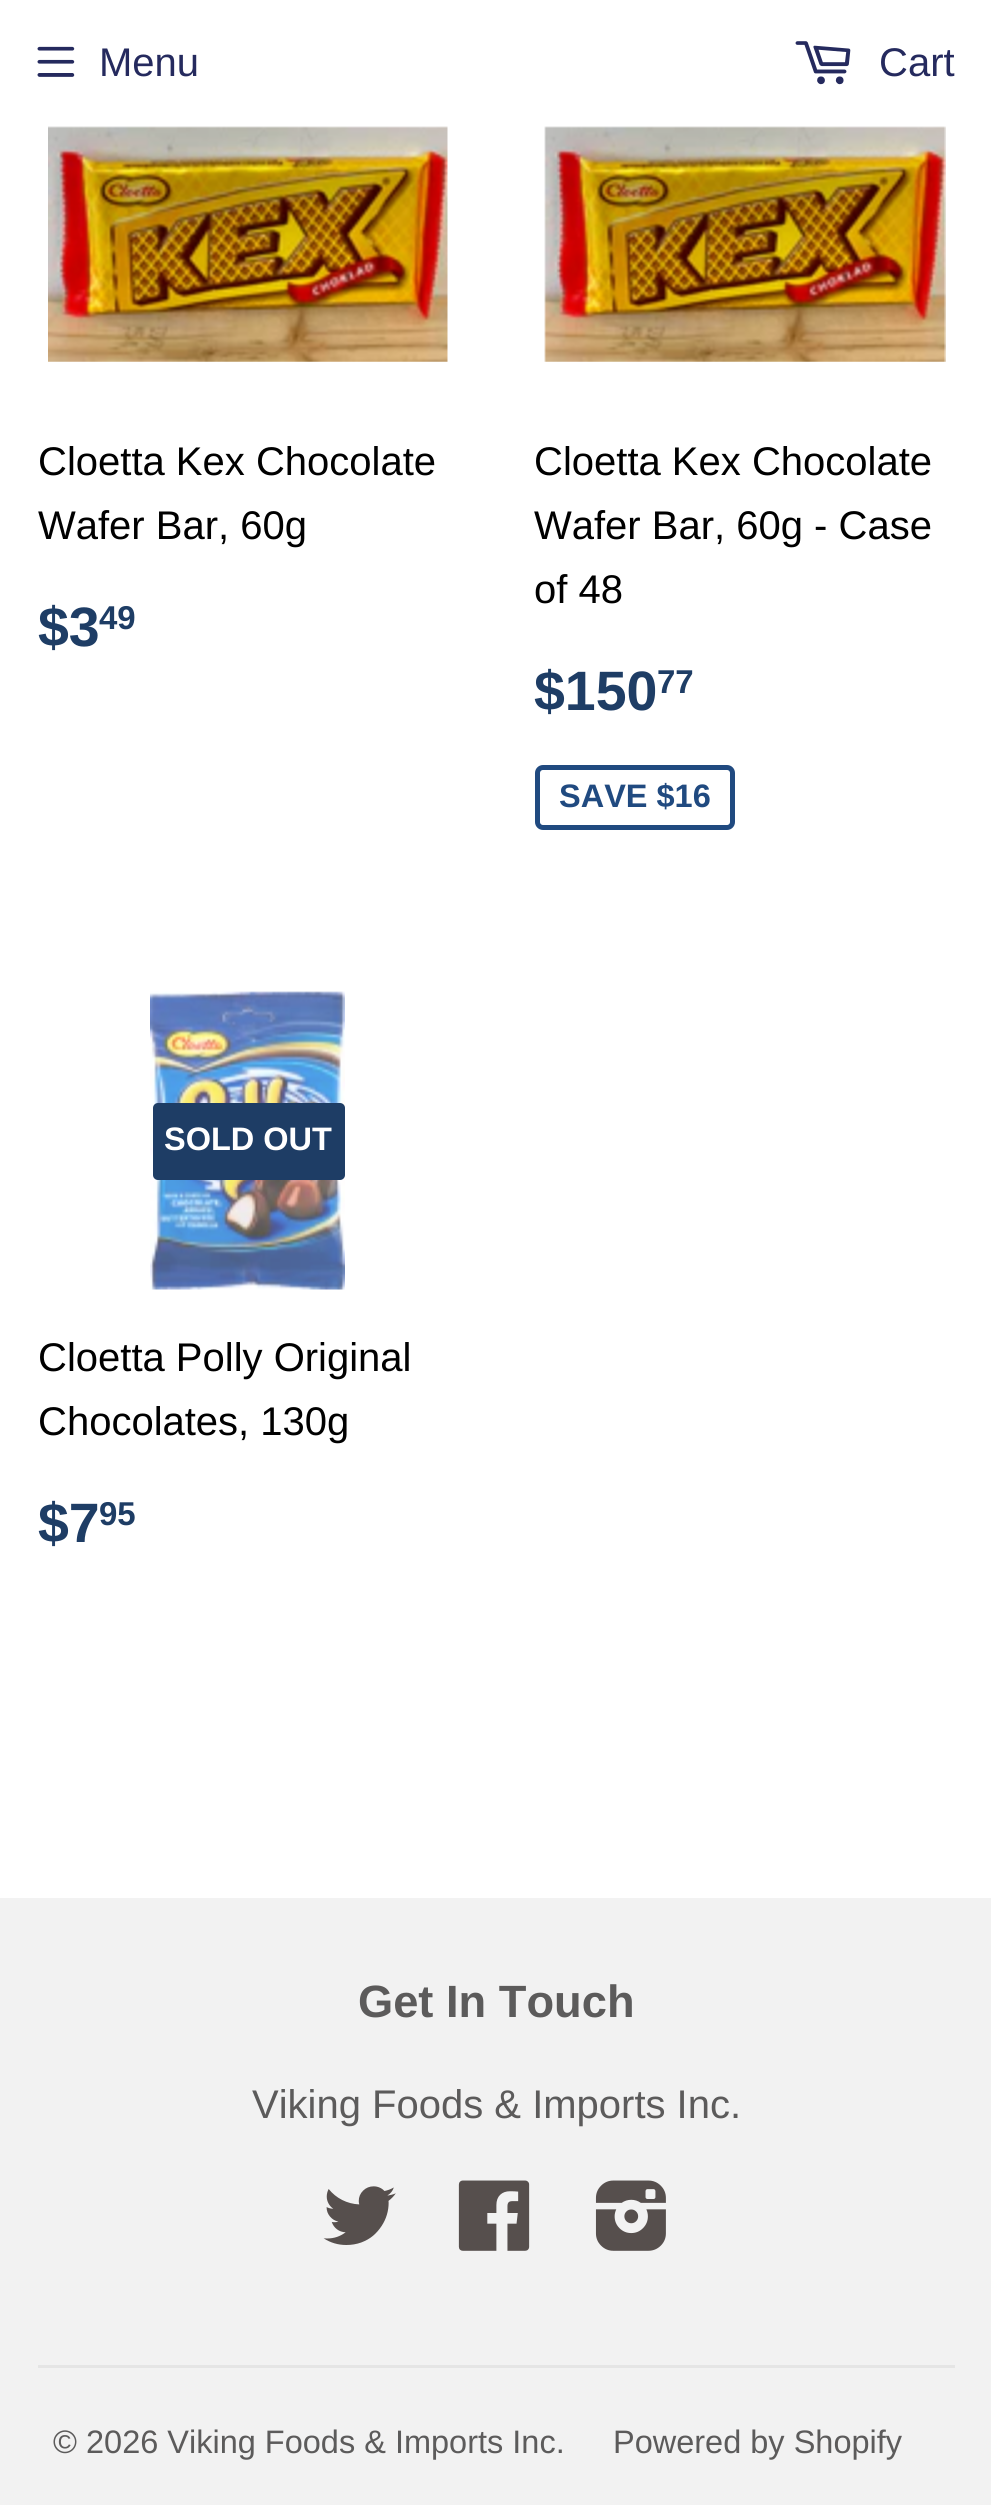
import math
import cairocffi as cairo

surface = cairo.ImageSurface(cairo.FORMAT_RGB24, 991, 2505)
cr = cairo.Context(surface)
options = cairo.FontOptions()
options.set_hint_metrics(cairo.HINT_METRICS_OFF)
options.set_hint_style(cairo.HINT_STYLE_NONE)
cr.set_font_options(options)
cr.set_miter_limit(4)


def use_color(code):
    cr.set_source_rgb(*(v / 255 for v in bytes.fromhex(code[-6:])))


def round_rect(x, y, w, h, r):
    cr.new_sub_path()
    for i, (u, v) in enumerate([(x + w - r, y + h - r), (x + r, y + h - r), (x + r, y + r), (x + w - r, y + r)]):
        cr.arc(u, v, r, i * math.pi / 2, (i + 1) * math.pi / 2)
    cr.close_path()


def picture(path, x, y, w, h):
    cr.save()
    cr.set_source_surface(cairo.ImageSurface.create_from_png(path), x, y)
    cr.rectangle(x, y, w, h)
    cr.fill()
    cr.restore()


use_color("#ffffff")
cr.paint()
picture("img1.png", 37, 46, 38, 31)
cr.select_font_face("Liberation Sans")
cr.set_font_size(40)
use_color("#252a5e")
cr.move_to(99, 76)
cr.show_text("Menu")
picture("img2.png", 795, 41, 56, 44)
cr.move_to(879, 76)
cr.show_text("Cart")
picture("img3.png", 48, 126, 400, 236)
use_color("#000000")
cr.move_to(38, 475)
cr.show_text("Cloetta Kex Chocolate")
cr.move_to(38, 539)
cr.show_text("Wafer Bar, 60g")
cr.select_font_face("Liberation Sans", cairo.FONT_SLANT_NORMAL, cairo.FONT_WEIGHT_BOLD)
cr.set_font_size(55.5)
use_color("#1e3d65")
cr.move_to(38, 646)
cr.show_text("$3")
cr.set_font_size(33)
cr.move_to(99, 629)
cr.show_text("49")
picture("img4.png", 544, 126, 402, 236)
cr.select_font_face("Liberation Sans")
cr.set_font_size(40)
use_color("#000000")
cr.move_to(534, 475)
cr.show_text("Cloetta Kex Chocolate")
cr.move_to(534, 539)
cr.show_text("Wafer Bar, 60g - Case")
cr.move_to(534, 603)
cr.show_text("of 48")
cr.select_font_face("Liberation Sans", cairo.FONT_SLANT_NORMAL, cairo.FONT_WEIGHT_BOLD)
cr.set_font_size(55.5)
use_color("#1e3d65")
cr.move_to(534, 710)
cr.show_text("$150")
cr.set_font_size(33)
cr.move_to(657, 693)
cr.show_text("77")
round_rect(537.5, 767.5, 195, 60, 5.5)
use_color("#204a80")
cr.set_line_width(5)
cr.stroke()
cr.set_font_size(32.5)
cr.move_to(559, 807)
cr.show_text("SAVE $16")
picture("img5.png", 150, 991, 195, 299)
use_color("#1e3d65")
round_rect(153, 1103, 192, 77, 5)
cr.fill()
use_color("#ffffff")
cr.move_to(164, 1150)
cr.show_text("SOLD OUT")
cr.select_font_face("Liberation Sans")
cr.set_font_size(40)
use_color("#000000")
cr.move_to(38, 1371)
cr.show_text("Cloetta Polly Original")
cr.move_to(38, 1435)
cr.show_text("Chocolates, 130g")
cr.select_font_face("Liberation Sans", cairo.FONT_SLANT_NORMAL, cairo.FONT_WEIGHT_BOLD)
cr.set_font_size(55.5)
use_color("#1e3d65")
cr.move_to(38, 1542)
cr.show_text("$7")
cr.set_font_size(33)
cr.move_to(99, 1525)
cr.show_text("95")
use_color("#f2f2f2")
cr.rectangle(0, 1898, 991, 607)
cr.fill()
cr.set_font_size(45.25)
use_color("#5c5b5b")
cr.move_to(358, 2017)
cr.show_text("Get In Touch")
cr.select_font_face("Liberation Sans")
cr.set_font_size(40)
cr.move_to(252, 2118)
cr.show_text("Viking Foods & Imports Inc.")
picture("img6.png", 323, 2186, 73, 59)
picture("img7.png", 458, 2180, 72, 71)
picture("img8.png", 595, 2180, 71, 71)
use_color("#e5e5e5")
cr.rectangle(38, 2365, 917, 3)
cr.fill()
cr.set_font_size(32.5)
use_color("#5c5b5b")
cr.move_to(53, 2453)
cr.show_text("© 2026 Viking Foods & Imports Inc.")
cr.move_to(613, 2453)
cr.show_text("Powered by Shopify")
surface.write_to_png("result.png")
